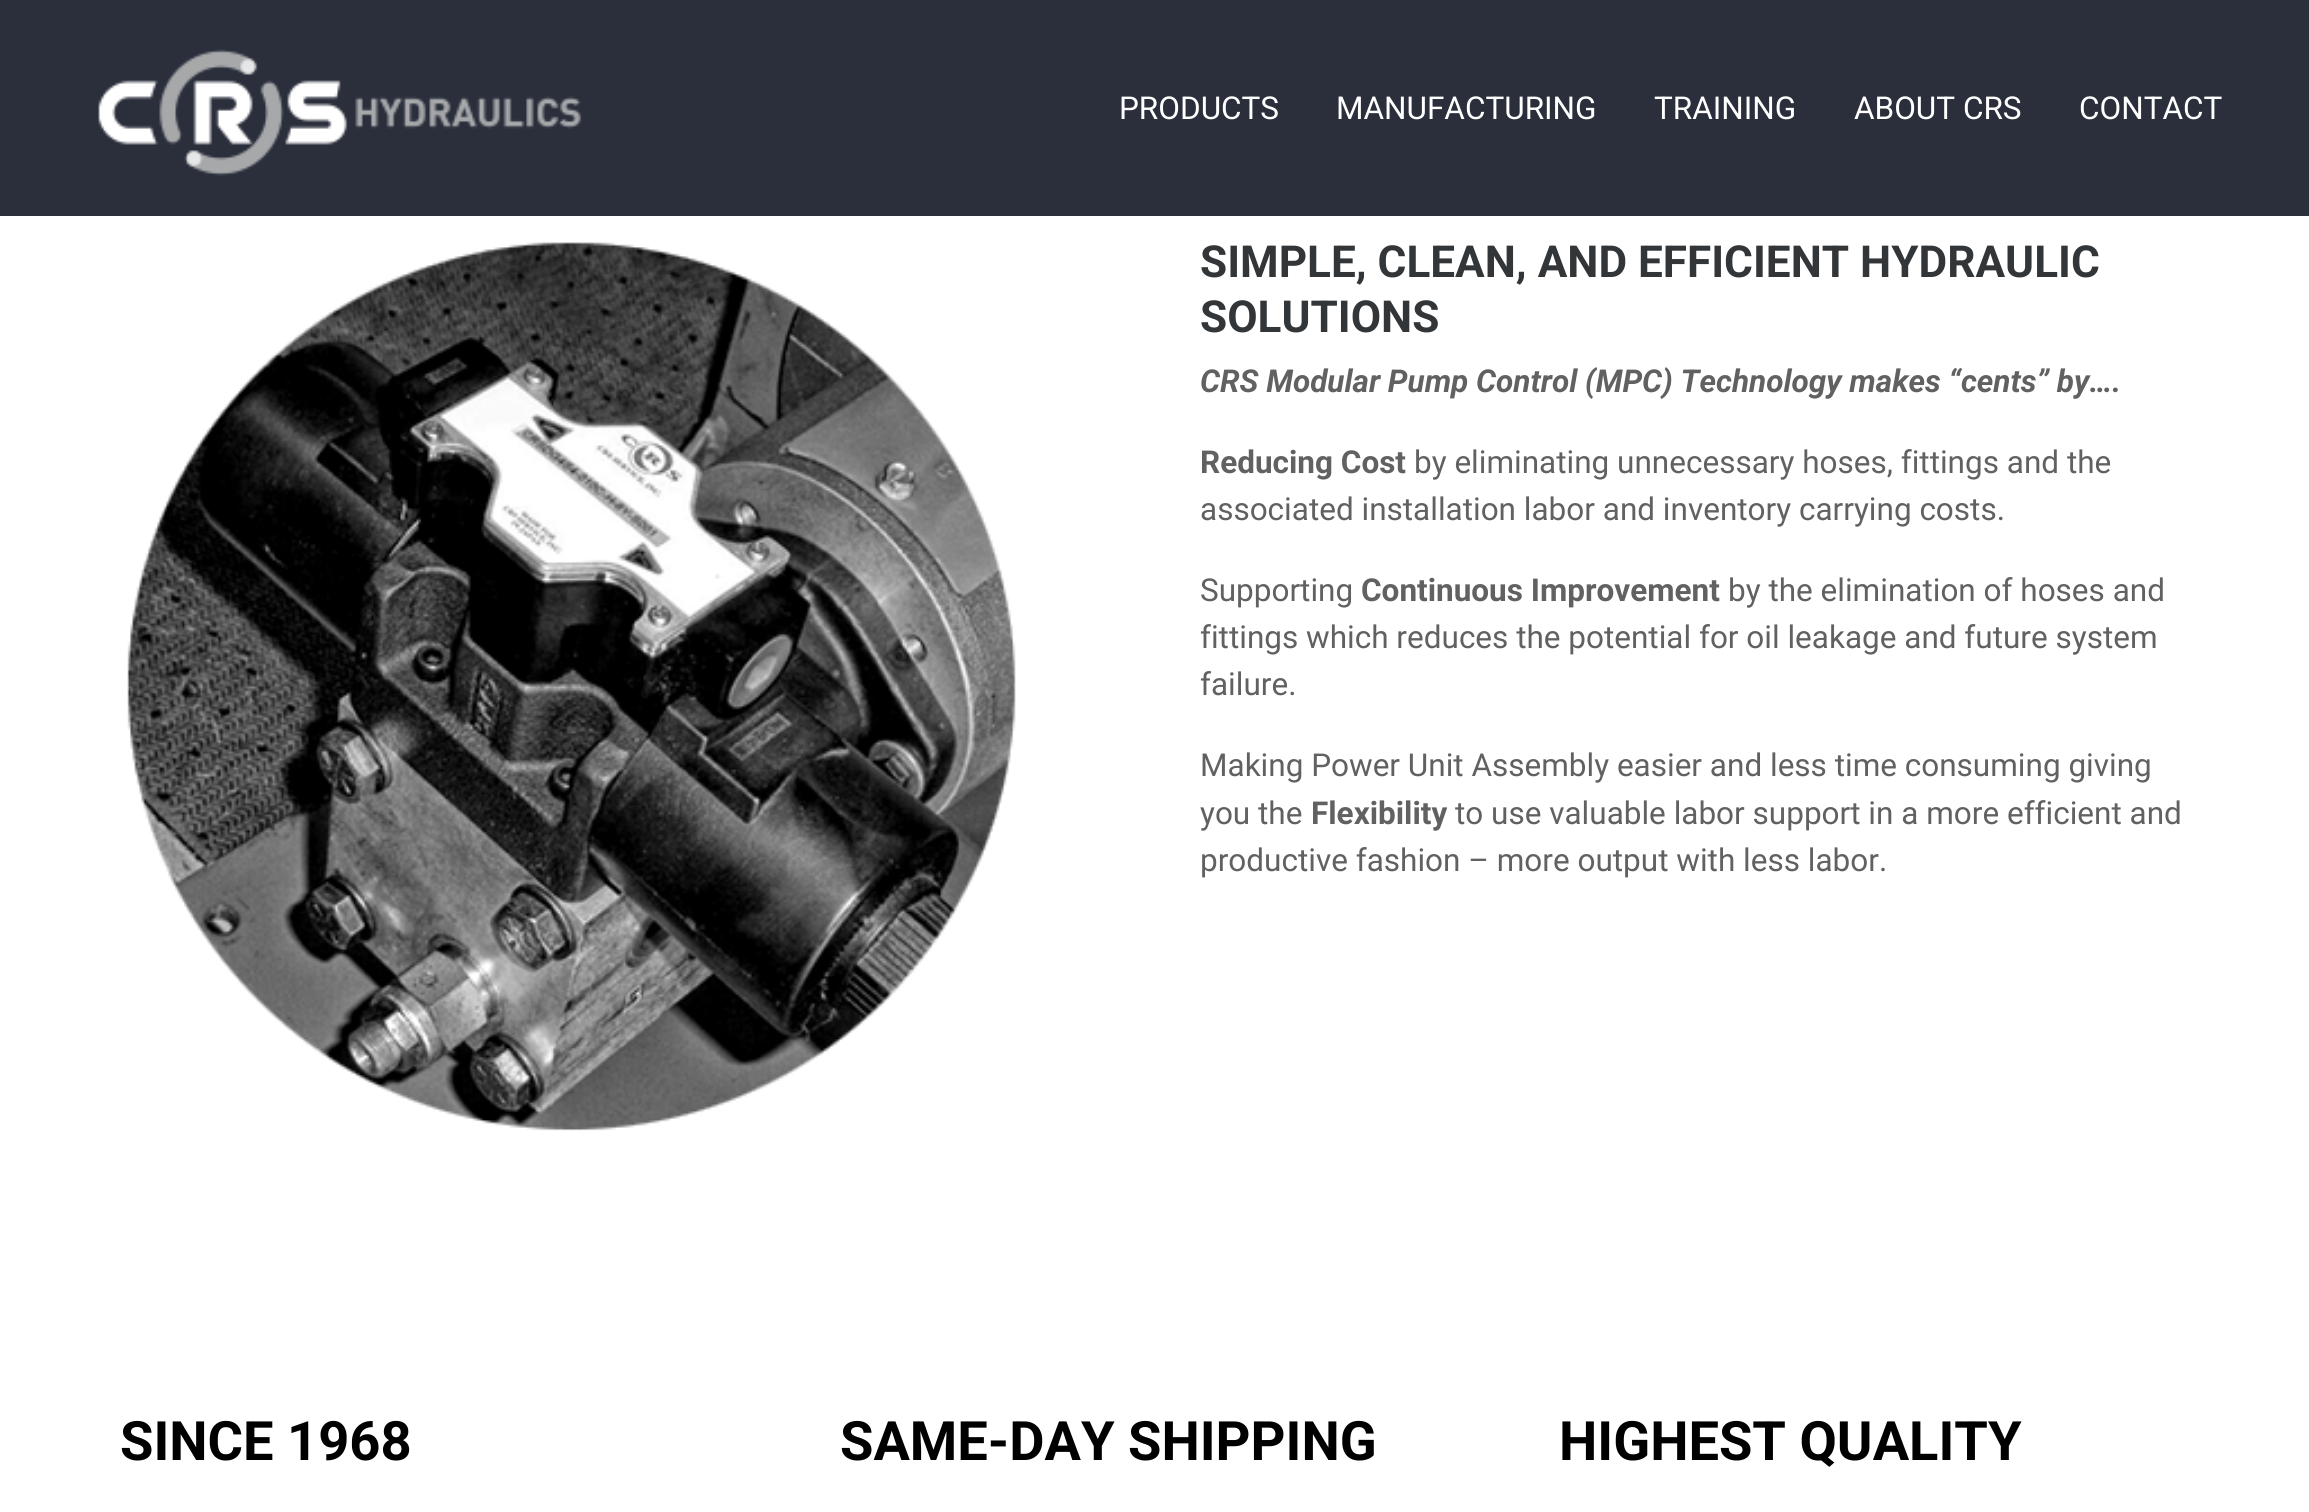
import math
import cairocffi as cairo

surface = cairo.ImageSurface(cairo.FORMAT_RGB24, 2309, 1512)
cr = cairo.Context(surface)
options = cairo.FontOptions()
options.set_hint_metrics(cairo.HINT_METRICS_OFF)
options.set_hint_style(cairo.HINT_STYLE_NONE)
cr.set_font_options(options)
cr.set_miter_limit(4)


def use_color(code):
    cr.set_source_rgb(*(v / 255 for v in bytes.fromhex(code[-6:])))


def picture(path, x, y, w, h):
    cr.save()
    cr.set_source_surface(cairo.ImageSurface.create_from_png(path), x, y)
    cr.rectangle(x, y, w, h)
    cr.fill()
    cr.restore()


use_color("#ffffff")
cr.paint()
use_color("#2b2f3c")
cr.rectangle(0, 0, 2309, 216)
cr.fill()
picture("img1.png", 98, 49, 484, 127)
cr.select_font_face("Roboto")
cr.set_font_size(31.5)
use_color("#ffffff")
cr.move_to(1119, 119)
cr.show_text("PRODUCTS")
cr.move_to(1336, 119)
cr.show_text("MANUFACTURING")
cr.move_to(1654, 119)
cr.show_text("TRAINING")
cr.move_to(1854, 119)
cr.show_text("ABOUT CRS")
cr.move_to(2079, 119)
cr.show_text("CONTACT")
picture("img2.png", 127, 242, 889, 889)
cr.select_font_face("Roboto", cairo.FONT_SLANT_NORMAL, cairo.FONT_WEIGHT_BOLD)
cr.set_font_size(44.1)
use_color("#323639")
cr.move_to(1200, 277)
cr.show_text("SIMPLE, CLEAN, AND EFFICIENT HYDRAULIC")
cr.move_to(1200, 332)
cr.show_text("SOLUTIONS")
cr.select_font_face("Roboto", cairo.FONT_SLANT_ITALIC, cairo.FONT_WEIGHT_BOLD)
cr.set_font_size(31.5)
use_color("#616161")
cr.move_to(1200, 392)
cr.show_text("CRS Modular Pump Control (MPC) Technology makes “cents” by….")
cr.select_font_face("Roboto", cairo.FONT_SLANT_NORMAL, cairo.FONT_WEIGHT_BOLD)
cr.move_to(1200, 473)
cr.show_text("Reducing Cost")
cr.select_font_face("Roboto")
cr.move_to(1414, 473)
cr.show_text("by eliminating unnecessary hoses, fittings and the")
cr.move_to(1200, 520)
cr.show_text("associated installation labor and inventory carrying costs.")
cr.move_to(1200, 601)
cr.show_text("Supporting")
cr.select_font_face("Roboto", cairo.FONT_SLANT_NORMAL, cairo.FONT_WEIGHT_BOLD)
cr.move_to(1361, 601)
cr.show_text("Continuous Improvement")
cr.select_font_face("Roboto")
cr.move_to(1728, 601)
cr.show_text("by the elimination of hoses and")
cr.move_to(1200, 648)
cr.show_text("fittings which reduces the potential for oil leakage and future system")
cr.move_to(1200, 695)
cr.show_text("failure.")
cr.move_to(1200, 776)
cr.show_text("Making Power Unit Assembly easier and less time consuming giving")
cr.move_to(1200, 824)
cr.show_text("you the")
cr.select_font_face("Roboto", cairo.FONT_SLANT_NORMAL, cairo.FONT_WEIGHT_BOLD)
cr.move_to(1311, 824)
cr.show_text("Flexibility")
cr.select_font_face("Roboto")
cr.move_to(1455, 824)
cr.show_text("to use valuable labor support in a more efficient and")
cr.move_to(1200, 871)
cr.show_text("productive fashion – more output with less labor.")
cr.select_font_face("Roboto", cairo.FONT_SLANT_NORMAL, cairo.FONT_WEIGHT_BOLD)
cr.set_font_size(54.25)
use_color("#000000")
cr.move_to(120, 1460)
cr.show_text("SINCE 1968")
cr.move_to(840, 1460)
cr.show_text("SAME-DAY SHIPPING")
cr.move_to(1559, 1460)
cr.show_text("HIGHEST QUALITY")
surface.write_to_png("result.png")
